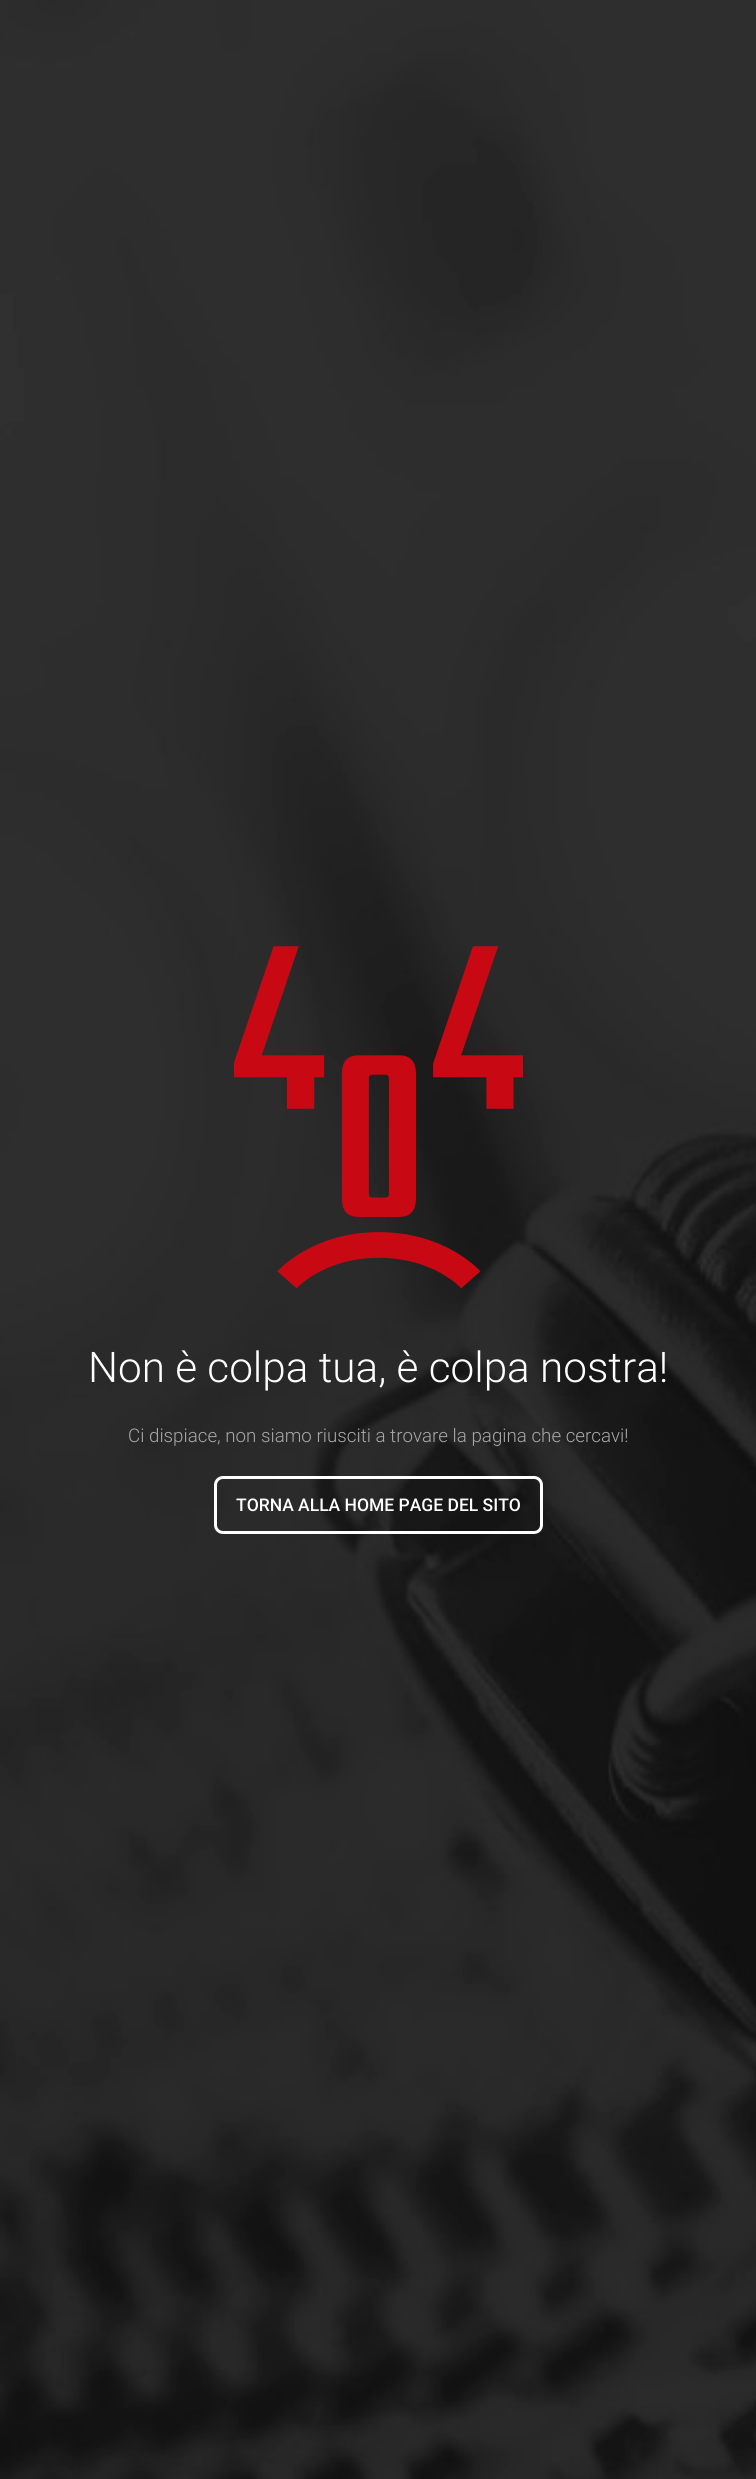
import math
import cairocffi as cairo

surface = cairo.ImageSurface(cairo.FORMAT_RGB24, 756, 2479)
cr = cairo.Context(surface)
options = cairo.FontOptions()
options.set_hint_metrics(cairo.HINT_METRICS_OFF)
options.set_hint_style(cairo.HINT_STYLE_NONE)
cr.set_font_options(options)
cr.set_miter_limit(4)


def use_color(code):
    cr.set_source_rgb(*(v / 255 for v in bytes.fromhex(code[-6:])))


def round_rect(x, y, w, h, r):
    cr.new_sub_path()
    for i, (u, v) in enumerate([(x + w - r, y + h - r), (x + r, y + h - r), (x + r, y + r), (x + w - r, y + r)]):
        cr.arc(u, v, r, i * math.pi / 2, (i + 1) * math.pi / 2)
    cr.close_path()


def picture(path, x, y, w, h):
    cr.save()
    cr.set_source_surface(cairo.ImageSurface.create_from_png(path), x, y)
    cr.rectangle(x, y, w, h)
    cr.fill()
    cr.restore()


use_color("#ffffff")
cr.paint()
picture("img1.png", 0, 0, 756, 2479)
picture("img2.png", 234, 946, 289, 343)
cr.select_font_face("Roboto Light")
cr.set_font_size(42.25)
use_color("#ffffff")
cr.move_to(88, 1382)
cr.show_text("Non è colpa tua, è colpa nostra!")
cr.set_font_size(18.75)
use_color("#a8a8a8")
cr.move_to(128, 1442)
cr.show_text("Ci dispiace, non siamo riusciti a trovare la pagina che cercavi!")
round_rect(215.5, 1477.5, 326, 55, 7.5)
use_color("#ffffff")
cr.set_line_width(3)
cr.stroke()
cr.select_font_face("Roboto Medium")
cr.set_font_size(17.5)
cr.move_to(236, 1511)
cr.show_text("TORNA ALLA HOME PAGE DEL SITO")
surface.write_to_png("result.png")
